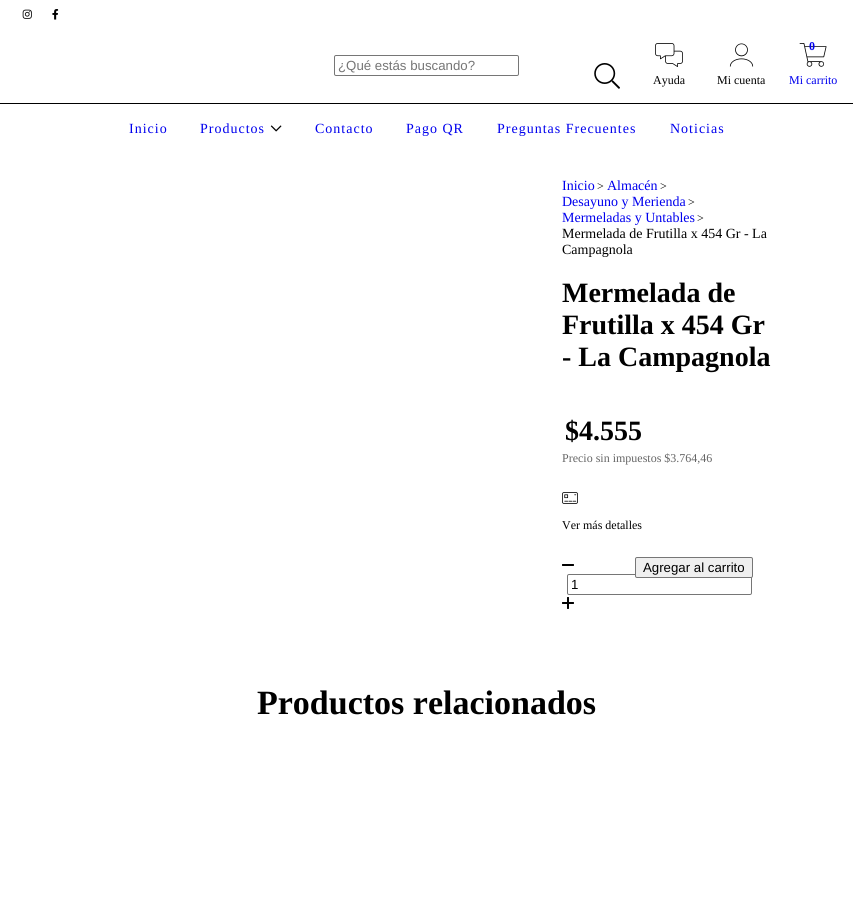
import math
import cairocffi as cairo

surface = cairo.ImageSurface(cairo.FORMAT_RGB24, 853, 906)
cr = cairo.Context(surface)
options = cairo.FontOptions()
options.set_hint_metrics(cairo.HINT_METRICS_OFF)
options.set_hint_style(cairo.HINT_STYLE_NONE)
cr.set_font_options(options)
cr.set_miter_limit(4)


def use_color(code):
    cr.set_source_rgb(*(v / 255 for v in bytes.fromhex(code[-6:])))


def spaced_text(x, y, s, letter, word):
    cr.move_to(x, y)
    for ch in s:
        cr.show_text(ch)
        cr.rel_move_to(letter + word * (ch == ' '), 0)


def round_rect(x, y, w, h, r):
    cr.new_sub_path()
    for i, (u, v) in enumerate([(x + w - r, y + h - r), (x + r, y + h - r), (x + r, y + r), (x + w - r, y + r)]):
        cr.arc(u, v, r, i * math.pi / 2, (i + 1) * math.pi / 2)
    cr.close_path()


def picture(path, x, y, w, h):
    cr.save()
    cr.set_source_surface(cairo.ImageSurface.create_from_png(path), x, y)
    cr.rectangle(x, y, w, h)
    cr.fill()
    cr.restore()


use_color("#ffffff")
cr.paint()
picture("img1.png", 22, 9, 10, 10)
picture("img2.png", 52, 9, 7, 11)
round_rect(334.5, 55.5, 184, 20, 1.5)
use_color("#767676")
cr.set_line_width(1)
cr.stroke()
cr.select_font_face("Liberation Sans")
cr.set_font_size(13.25)
use_color("#757575")
cr.move_to(338, 70)
cr.show_text("¿Qué estás buscando?")
picture("img3.png", 594, 63, 26, 26)
picture("img4.png", 655, 43, 28, 24)
cr.select_font_face("Liberation Serif")
cr.set_font_size(12)
use_color("#000000")
cr.move_to(653, 84)
cr.show_text("Ayuda")
picture("img5.png", 729, 43, 25, 24)
cr.move_to(717, 84)
cr.show_text("Mi cuenta")
picture("img6.png", 799, 43, 28, 24)
cr.select_font_face("Liberation Serif", cairo.FONT_SLANT_NORMAL, cairo.FONT_WEIGHT_BOLD)
use_color("#0000ee")
cr.move_to(809, 50)
cr.show_text("0")
cr.select_font_face("Liberation Serif")
cr.move_to(789, 84)
cr.show_text("Mi carrito")
use_color("#000000")
cr.rectangle(0, 103, 853, 1)
cr.fill()
cr.set_font_size(14)
use_color("#0000ee")
spaced_text(129, 133, "Inicio", 1, 0)
spaced_text(200, 133, "Productos", 1, 0)
picture("img7.png", 270, 125, 12, 7)
spaced_text(315, 133, "Contacto", 1, 0)
spaced_text(406, 133, "Pago QR", 1, 0)
spaced_text(497, 133, "Preguntas Frecuentes", 1, 0)
spaced_text(670, 133, "Noticias", 1, 0)
cr.move_to(562, 190)
cr.show_text("Inicio")
cr.set_font_size(12)
use_color("#000000")
cr.move_to(597, 190)
cr.show_text(">")
cr.set_font_size(14)
use_color("#0000ee")
cr.move_to(607, 190)
cr.show_text("Almacén")
cr.set_font_size(12)
use_color("#000000")
cr.move_to(660, 190)
cr.show_text(">")
cr.set_font_size(14)
use_color("#0000ee")
cr.move_to(562, 206)
cr.show_text("Desayuno y Merienda")
cr.set_font_size(12)
use_color("#000000")
cr.move_to(688, 206)
cr.show_text(">")
cr.set_font_size(14)
use_color("#0000ee")
cr.move_to(562, 222)
cr.show_text("Mermeladas y Untables")
cr.set_font_size(12)
use_color("#000000")
cr.move_to(697, 222)
cr.show_text(">")
cr.set_font_size(14)
cr.move_to(562, 238)
cr.show_text("Mermelada de Frutilla x 454 Gr - La")
cr.move_to(562, 254)
cr.show_text("Campagnola")
cr.select_font_face("Liberation Serif", cairo.FONT_SLANT_NORMAL, cairo.FONT_WEIGHT_BOLD)
cr.set_font_size(28)
cr.move_to(562, 302)
cr.show_text("Mermelada de")
cr.move_to(562, 334)
cr.show_text("Frutilla x 454 Gr")
cr.move_to(562, 366)
cr.show_text("- La Campagnola")
cr.move_to(565, 440)
cr.show_text("$4.555")
cr.select_font_face("Liberation Serif")
cr.set_font_size(12)
use_color("#666666")
cr.move_to(562, 462)
cr.show_text("Precio sin impuestos $3.764,46")
picture("img8.png", 562, 492, 16, 12)
use_color("#000000")
cr.move_to(562, 529)
cr.show_text("Ver más detalles")
round_rect(567.5, 574.5, 184, 20, 1.5)
use_color("#767676")
cr.stroke()
use_color("#efefef")
round_rect(635.5, 557.5, 117, 20, 1.5)
cr.fill_preserve()
use_color("#767676")
cr.stroke()
cr.select_font_face("Liberation Sans")
cr.set_font_size(13.25)
use_color("#000000")
cr.move_to(643, 572)
cr.show_text("Agregar al carrito")
picture("img9.png", 562, 564, 12, 2)
cr.move_to(571, 589)
cr.show_text("1")
picture("img10.png", 562, 597, 12, 12)
cr.select_font_face("Liberation Serif", cairo.FONT_SLANT_NORMAL, cairo.FONT_WEIGHT_BOLD)
cr.set_font_size(34)
cr.move_to(257, 714)
cr.show_text("Productos relacionados")
surface.write_to_png("result.png")
